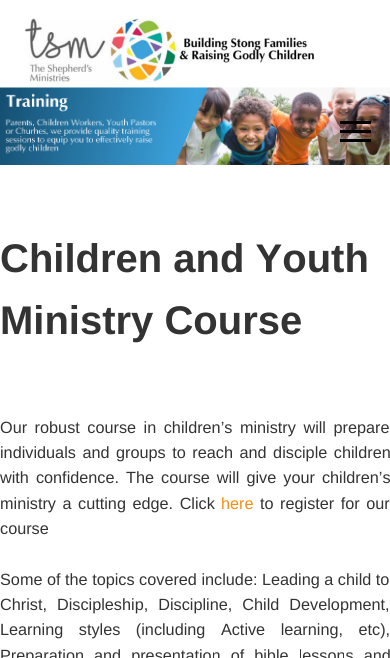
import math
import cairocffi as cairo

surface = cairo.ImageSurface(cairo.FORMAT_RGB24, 390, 658)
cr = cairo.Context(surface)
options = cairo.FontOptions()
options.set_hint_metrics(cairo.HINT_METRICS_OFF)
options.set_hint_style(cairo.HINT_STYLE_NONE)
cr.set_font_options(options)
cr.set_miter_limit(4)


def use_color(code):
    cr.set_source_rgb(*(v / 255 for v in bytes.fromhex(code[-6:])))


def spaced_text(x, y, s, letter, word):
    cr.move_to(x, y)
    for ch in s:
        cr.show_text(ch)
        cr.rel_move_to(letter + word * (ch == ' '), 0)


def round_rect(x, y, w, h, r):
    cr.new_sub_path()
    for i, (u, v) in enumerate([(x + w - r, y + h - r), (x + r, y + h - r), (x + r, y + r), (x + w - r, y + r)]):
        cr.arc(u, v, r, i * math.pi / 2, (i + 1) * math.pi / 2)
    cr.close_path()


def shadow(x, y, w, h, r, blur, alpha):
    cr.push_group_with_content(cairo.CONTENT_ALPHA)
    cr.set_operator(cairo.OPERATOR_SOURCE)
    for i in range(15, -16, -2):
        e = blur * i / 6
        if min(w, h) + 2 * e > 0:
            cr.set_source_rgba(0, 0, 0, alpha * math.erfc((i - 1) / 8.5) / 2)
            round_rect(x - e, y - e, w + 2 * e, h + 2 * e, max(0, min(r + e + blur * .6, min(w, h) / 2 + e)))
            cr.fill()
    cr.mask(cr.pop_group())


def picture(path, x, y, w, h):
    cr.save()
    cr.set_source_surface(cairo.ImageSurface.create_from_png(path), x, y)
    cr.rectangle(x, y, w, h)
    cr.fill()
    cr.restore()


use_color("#ffffff")
cr.paint()
use_color("#000000")
shadow(0, 4, 390, 87, 0, 4.5, 0.1)
use_color("#ffffff")
cr.rectangle(0, 0, 390, 88)
cr.fill()
picture("img1.png", 25, 18, 289, 64)
picture("img2.png", 0, 87, 390, 78)
use_color("#000000")
cr.rectangle(340, 121, 31, 3)
cr.fill()
cr.rectangle(340, 130, 31, 3)
cr.fill()
cr.rectangle(340, 139, 31, 3)
cr.fill()
cr.select_font_face("Liberation Sans", cairo.FONT_SLANT_NORMAL, cairo.FONT_WEIGHT_BOLD)
cr.set_font_size(40)
use_color("#333333")
cr.move_to(0, 272)
cr.show_text("Children and Youth")
cr.move_to(0, 334)
cr.show_text("Ministry Course")
cr.select_font_face("Liberation Sans")
cr.set_font_size(16.25)
spaced_text(0, 433, "Our robust course in children’s ministry will prepare", 0, 3)
spaced_text(0, 458, "individuals and groups to reach and disciple children", 0, 2)
spaced_text(0, 483, "with confidence. The course will give your children’s", 0, 2.5)
spaced_text(0, 509, "ministry a cutting edge. Click", 0, 2)
use_color("#f68e13")
cr.move_to(221, 509)
cr.show_text("here")
use_color("#333333")
spaced_text(260, 509, "to register for our", 0, 2)
cr.move_to(0, 534)
cr.show_text("course")
cr.move_to(0, 585)
cr.show_text("Some of the topics covered include: Leading a child to")
spaced_text(0, 610, "Christ, Discipleship, Discipline, Child Development,", 0, 5.5)
spaced_text(0, 635, "Learning styles (including Active learning, etc),", 0, 11)
spaced_text(0, 661, "Preparation and presentation of bible lessons and", 0, 5.5)
surface.write_to_png("result.png")
